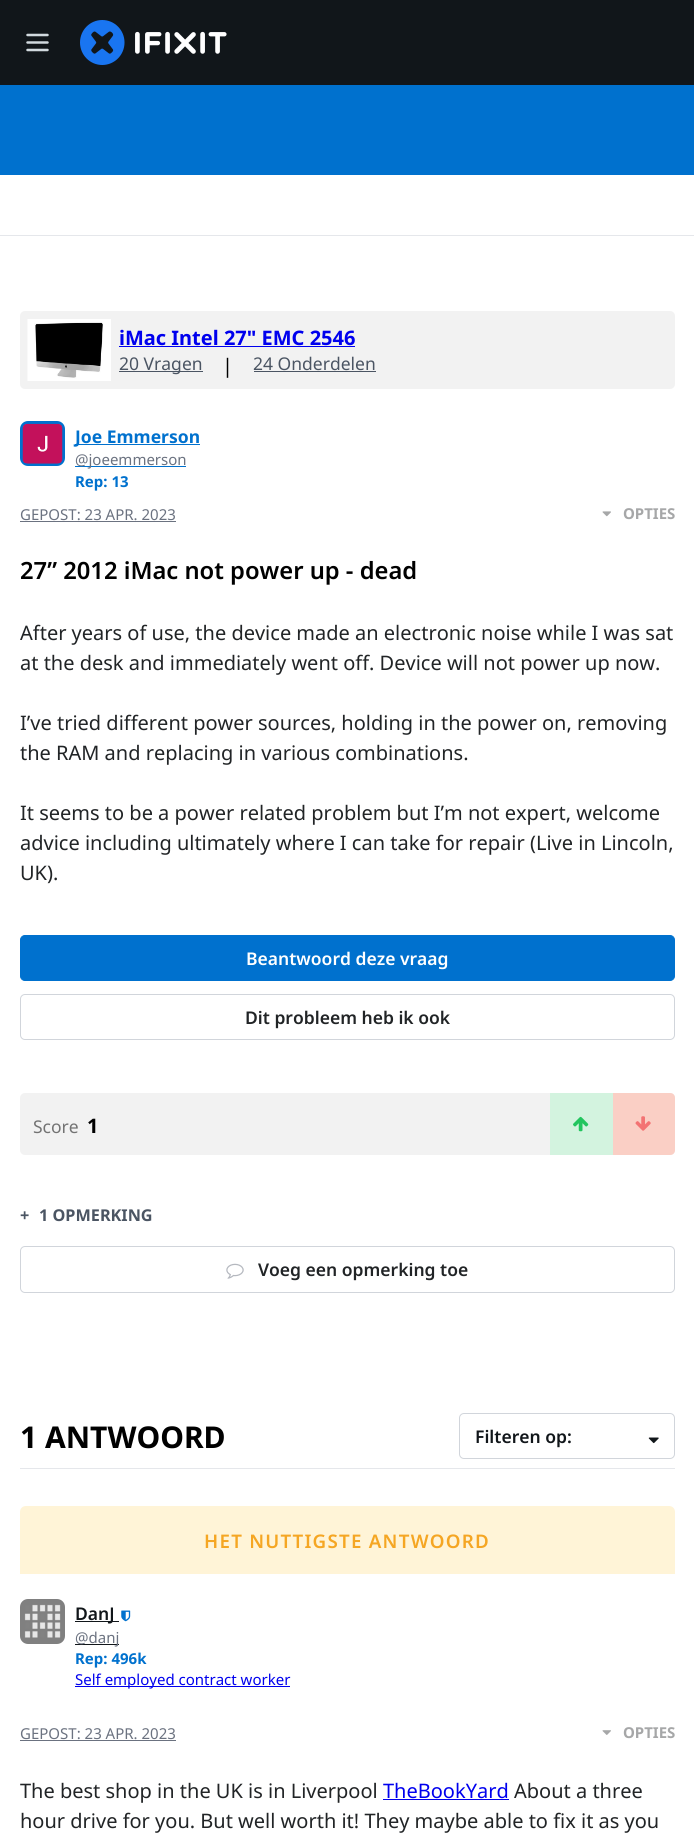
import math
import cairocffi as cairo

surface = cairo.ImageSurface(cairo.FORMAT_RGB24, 694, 1842)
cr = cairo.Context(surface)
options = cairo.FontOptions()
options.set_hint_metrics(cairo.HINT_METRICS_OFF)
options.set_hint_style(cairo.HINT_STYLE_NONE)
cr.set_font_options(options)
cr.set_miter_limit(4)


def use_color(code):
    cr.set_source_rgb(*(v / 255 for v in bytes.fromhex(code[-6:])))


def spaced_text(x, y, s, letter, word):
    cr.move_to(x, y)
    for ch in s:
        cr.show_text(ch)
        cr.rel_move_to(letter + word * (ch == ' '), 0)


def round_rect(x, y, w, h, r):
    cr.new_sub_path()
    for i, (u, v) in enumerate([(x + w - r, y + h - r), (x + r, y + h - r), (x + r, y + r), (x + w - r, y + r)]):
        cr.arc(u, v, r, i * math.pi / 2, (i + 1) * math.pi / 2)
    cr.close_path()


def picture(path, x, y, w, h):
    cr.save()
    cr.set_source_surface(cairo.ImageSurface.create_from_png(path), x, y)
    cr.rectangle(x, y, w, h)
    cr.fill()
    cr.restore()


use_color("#ffffff")
cr.paint()
use_color("#11161a")
cr.rectangle(0, 0, 694, 85)
cr.fill()
cr.new_path()
cr.move_to(27.5, 42.5)
cr.line_to(47.5, 42.5)
cr.move_to(27.5, 35)
cr.line_to(47.5, 35)
cr.move_to(27.5, 50)
cr.line_to(47.5, 50)
use_color("#d2dadf")
cr.set_line_width(2.5)
cr.set_line_cap(cairo.LINE_CAP_ROUND)
cr.set_line_join(cairo.LINE_JOIN_ROUND)
cr.stroke()
picture("img1.png", 80, 20, 147, 45)
use_color("#0071ce")
cr.rectangle(0, 85, 694, 90)
cr.fill()
use_color("#e5e7eb")
cr.rectangle(0, 235, 694, 1)
cr.fill()
use_color("#f2f2f2")
round_rect(20, 311, 655, 78, 5)
cr.fill()
picture("img2.png", 27, 319, 84, 62)
cr.select_font_face("Noto Sans", cairo.FONT_SLANT_NORMAL, cairo.FONT_WEIGHT_BOLD)
cr.set_font_size(20)
use_color("#0000ee")
cr.move_to(119, 345)
cr.show_text("iMac Intel 27\" EMC 2546")
cr.rectangle(119, 346, 236, 1)
cr.fill()
use_color("#4b5563")
cr.rectangle(119, 371, 84, 1)
cr.fill()
cr.select_font_face("Noto Sans")
cr.set_font_size(17.5)
cr.move_to(119, 370)
cr.show_text("20 Vragen")
cr.set_font_size(20)
use_color("#000000")
cr.move_to(222, 373)
cr.show_text("|")
cr.set_font_size(17.5)
use_color("#4b5563")
cr.move_to(253, 370)
cr.show_text("24 Onderdelen")
cr.rectangle(254, 371, 122, 1)
cr.fill()
round_rect(21.5, 422.5, 42, 42, 6.5)
use_color("#0071ce")
cr.set_line_width(3)
cr.set_line_cap(cairo.LINE_CAP_BUTT)
cr.set_line_join(cairo.LINE_JOIN_MITER)
cr.stroke()
picture("img3.png", 22, 423, 41, 41)
cr.rectangle(75, 444, 125, 1)
cr.fill()
cr.select_font_face("Noto Sans", cairo.FONT_SLANT_NORMAL, cairo.FONT_WEIGHT_BOLD)
cr.move_to(75, 443)
cr.show_text("Joe Emmerson")
cr.rectangle(75, 466, 111, 1)
cr.fill()
cr.select_font_face("Noto Sans")
cr.set_font_size(15)
use_color("#6b7280")
cr.move_to(75, 465)
cr.show_text("@joeemmerson")
cr.select_font_face("Noto Sans", cairo.FONT_SLANT_NORMAL, cairo.FONT_WEIGHT_BOLD)
use_color("#0071ce")
cr.move_to(75, 487)
cr.show_text("Rep: 13")
cr.select_font_face("Noto Sans")
use_color("#6b7280")
cr.move_to(20, 520)
cr.show_text("GEPOST: 23 APR. 2023")
cr.rectangle(20, 521, 156, 1)
cr.fill()
picture("img4.png", 602, 511, 9, 6)
cr.select_font_face("Noto Sans", cairo.FONT_SLANT_NORMAL, cairo.FONT_WEIGHT_BOLD)
use_color("#a6a7a8")
cr.move_to(623, 519)
cr.show_text("OPTIES")
cr.select_font_face("Noto Sans SemiBold")
cr.set_font_size(23.75)
use_color("#000000")
cr.move_to(20, 579)
cr.show_text("27” 2012 iMac not power up - dead")
cr.select_font_face("Noto Sans")
cr.set_font_size(20)
use_color("#212426")
cr.move_to(20, 640)
cr.show_text("After years of use, the device made an electronic noise while I was sat")
cr.move_to(20, 670)
cr.show_text("at the desk and immediately went off. Device will not power up now.")
cr.move_to(20, 730)
cr.show_text("I’ve tried different power sources, holding in the power on, removing")
cr.move_to(20, 760)
cr.show_text("the RAM and replacing in various combinations.")
cr.move_to(20, 820)
cr.show_text("It seems to be a power related problem but I’m not expert, welcome")
cr.move_to(20, 850)
cr.show_text("advice including ultimately where I can take for repair (Live in Lincoln,")
cr.move_to(20, 880)
cr.show_text("UK).")
use_color("#0071ce")
round_rect(20.5, 935.5, 654, 45, 4.5)
cr.fill_preserve()
cr.set_line_width(1)
cr.stroke()
cr.select_font_face("Noto Sans SemiBold")
cr.set_font_size(17.5)
use_color("#ffffff")
cr.move_to(246, 965)
cr.show_text("Beantwoord deze vraag")
round_rect(20.5, 994.5, 654, 45, 4.5)
use_color("#d1d5db")
cr.stroke()
use_color("#212426")
cr.move_to(245, 1024)
cr.show_text("Dit probleem heb ik ook")
use_color("#f2f2f2")
round_rect(20, 1093, 655, 62, 5)
cr.fill()
cr.select_font_face("Noto Sans")
use_color("#737373")
cr.move_to(33, 1133)
cr.show_text("Score")
cr.select_font_face("Noto Sans", cairo.FONT_SLANT_NORMAL, cairo.FONT_WEIGHT_BOLD)
cr.set_font_size(20)
use_color("#000000")
cr.move_to(87, 1133)
cr.show_text("1")
use_color("#d3f3df")
cr.rectangle(550, 1093, 63, 62)
cr.fill()
picture("img5.png", 573, 1116, 16, 16)
use_color("#facfc5")
cr.new_path()
cr.move_to(613, 1093)
cr.line_to(670, 1093)
cr.curve_to(673, 1093, 675, 1095, 675, 1098)
cr.line_to(675, 1150)
cr.curve_to(675, 1153, 673, 1155, 670, 1155)
cr.line_to(613, 1155)
cr.close_path()
cr.fill()
picture("img6.png", 635, 1116, 16, 15)
cr.set_font_size(16.25)
use_color("#4b5563")
cr.move_to(20, 1221)
cr.show_text("+")
cr.move_to(39, 1221)
cr.show_text("1 OPMERKING")
round_rect(20.5, 1246.5, 654, 46, 4.5)
use_color("#d1d5db")
cr.stroke()
picture("img7.png", 226, 1263, 18, 16)
cr.select_font_face("Noto Sans SemiBold")
cr.set_font_size(17.5)
use_color("#212426")
cr.move_to(258, 1276)
cr.show_text("Voeg een opmerking toe")
use_color("#e5e7eb")
cr.rectangle(20, 1468, 655, 1)
cr.fill()
cr.select_font_face("Noto Sans", cairo.FONT_SLANT_NORMAL, cairo.FONT_WEIGHT_BOLD)
cr.set_font_size(30)
use_color("#000000")
cr.move_to(20, 1448)
cr.show_text("1 ANTWOORD")
round_rect(459.5, 1413.5, 215, 45, 4.5)
use_color("#d1d5db")
cr.stroke()
cr.select_font_face("Noto Sans SemiBold")
cr.set_font_size(17.5)
use_color("#11161a")
cr.move_to(475, 1443)
cr.show_text("Filteren op:")
picture("img8.png", 648, 1437, 11, 7)
use_color("#fff4d7")
cr.new_path()
cr.move_to(26, 1506)
cr.line_to(669, 1506)
cr.curve_to(672.5, 1506, 675, 1508.5, 675, 1512)
cr.line_to(675, 1574)
cr.line_to(20, 1574)
cr.line_to(20, 1512)
cr.curve_to(20, 1508.5, 22.5, 1506, 26, 1506)
cr.close_path()
cr.fill()
cr.set_font_size(18.75)
use_color("#f5a623")
spaced_text(204, 1548, "HET NUTTIGSTE ANTWOORD", 1.25, 0)
use_color("#808080")
round_rect(20, 1599, 45, 45, 8)
cr.fill()
picture("img9.png", 24, 1604, 37, 34)
use_color("#11161a")
cr.rectangle(75, 1621, 44, 1)
cr.fill()
cr.set_font_size(17.5)
cr.move_to(75, 1620)
cr.show_text("DanJ")
picture("img10.png", 121, 1610, 10, 12)
cr.rectangle(75, 1644, 44, 1)
cr.fill()
cr.select_font_face("Noto Sans")
cr.set_font_size(15)
use_color("#6b7280")
cr.move_to(75, 1643)
cr.show_text("@danj")
cr.select_font_face("Noto Sans", cairo.FONT_SLANT_NORMAL, cairo.FONT_WEIGHT_BOLD)
use_color("#0071ce")
cr.move_to(75, 1664)
cr.show_text("Rep: 496k")
use_color("#0000ee")
cr.rectangle(75, 1686, 215, 1)
cr.fill()
cr.select_font_face("Noto Sans")
cr.move_to(75, 1685)
cr.show_text("Self employed contract worker")
use_color("#6b7280")
cr.move_to(20, 1739)
cr.show_text("GEPOST: 23 APR. 2023")
cr.rectangle(20, 1740, 156, 1)
cr.fill()
picture("img11.png", 602, 1730, 9, 5)
cr.select_font_face("Noto Sans", cairo.FONT_SLANT_NORMAL, cairo.FONT_WEIGHT_BOLD)
use_color("#a6a7a8")
cr.move_to(623, 1738)
cr.show_text("OPTIES")
cr.select_font_face("Noto Sans")
cr.set_font_size(20)
use_color("#212426")
cr.move_to(20, 1798)
cr.show_text("The best shop in the UK is in Liverpool")
use_color("#0000ee")
cr.move_to(383, 1798)
cr.show_text("TheBookYard")
cr.rectangle(383, 1799, 126, 1)
cr.fill()
use_color("#212426")
cr.move_to(514, 1798)
cr.show_text("About a three")
cr.move_to(20, 1828)
cr.show_text("hour drive for you. But well worth it! They maybe able to fix it as you")
surface.write_to_png("result.png")
